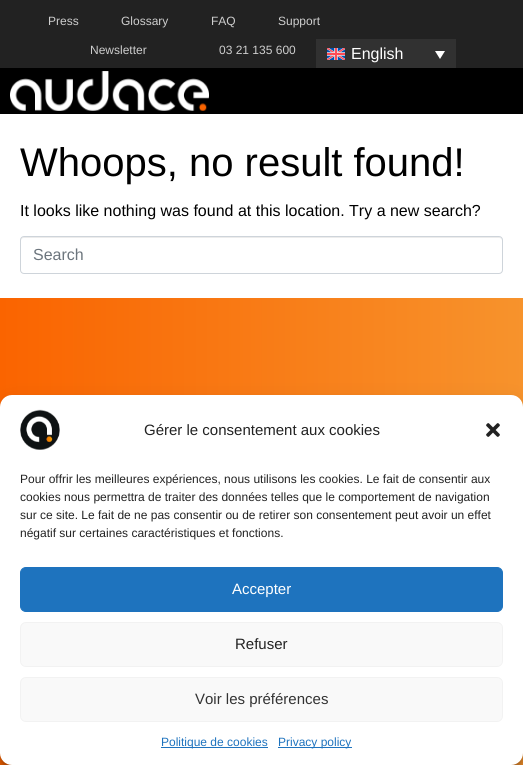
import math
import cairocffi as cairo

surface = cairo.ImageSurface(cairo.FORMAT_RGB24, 523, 765)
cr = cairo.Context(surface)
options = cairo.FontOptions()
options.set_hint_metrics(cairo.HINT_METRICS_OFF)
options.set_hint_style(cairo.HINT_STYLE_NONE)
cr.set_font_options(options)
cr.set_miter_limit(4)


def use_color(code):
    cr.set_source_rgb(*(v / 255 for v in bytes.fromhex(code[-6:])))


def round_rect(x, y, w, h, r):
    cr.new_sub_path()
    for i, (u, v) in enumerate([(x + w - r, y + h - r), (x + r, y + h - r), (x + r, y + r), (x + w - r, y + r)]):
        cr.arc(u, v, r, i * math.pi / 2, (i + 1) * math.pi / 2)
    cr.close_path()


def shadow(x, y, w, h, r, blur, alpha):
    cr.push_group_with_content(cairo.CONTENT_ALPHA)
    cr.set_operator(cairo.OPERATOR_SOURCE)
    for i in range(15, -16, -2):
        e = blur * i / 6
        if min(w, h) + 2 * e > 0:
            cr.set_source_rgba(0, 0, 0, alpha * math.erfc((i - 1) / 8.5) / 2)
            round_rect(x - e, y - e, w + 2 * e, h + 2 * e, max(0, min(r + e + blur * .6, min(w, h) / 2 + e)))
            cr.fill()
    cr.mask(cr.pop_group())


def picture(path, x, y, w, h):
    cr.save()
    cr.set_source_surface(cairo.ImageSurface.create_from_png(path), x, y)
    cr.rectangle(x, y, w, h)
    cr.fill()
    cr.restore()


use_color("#ffffff")
cr.paint()
use_color("#000000")
cr.rectangle(0, 68, 523, 46)
cr.fill()
use_color("#222222")
cr.rectangle(0, 0, 523, 68)
cr.fill()
cr.select_font_face("Liberation Sans")
cr.set_font_size(12)
use_color("#cecece")
cr.move_to(48, 25)
cr.show_text("Press")
cr.move_to(121, 25)
cr.show_text("Glossary")
cr.move_to(211, 25)
cr.show_text("FAQ")
cr.move_to(278, 25)
cr.show_text("Support")
cr.move_to(90, 54)
cr.show_text("Newsletter")
cr.move_to(219, 54)
cr.show_text("03 21 135 600")
use_color("#313131")
cr.rectangle(316, 39, 140, 29)
cr.fill()
picture("img1.png", 327, 48, 18, 12)
cr.set_font_size(16)
use_color("#ffffff")
cr.move_to(351, 59)
cr.show_text("English")
cr.new_path()
cr.move_to(435, 51)
cr.line_to(445, 51)
cr.line_to(440, 59)
cr.close_path()
cr.fill()
picture("img2.png", 10, 71, 199, 40)
cr.set_font_size(40)
use_color("#000000")
cr.move_to(20, 176)
cr.show_text("Whoops, no result found!")
cr.set_font_size(16)
cr.move_to(20, 216)
cr.show_text("It looks like nothing was found at this location. Try a new search?")
use_color("#ececec")
cr.new_path()
cr.move_to(24, 238)
cr.line_to(499, 238)
cr.curve_to(501, 238, 502, 239, 502, 241)
cr.line_to(502, 240)
cr.curve_to(502, 238, 501, 237, 499, 237)
cr.line_to(24, 237)
cr.curve_to(22, 237, 21, 238, 21, 240)
cr.line_to(21, 241)
cr.curve_to(21, 239, 22, 238, 24, 238)
cr.close_path()
cr.fill()
round_rect(20.5, 236.5, 482, 37, 3.5)
use_color("#ced4da")
cr.set_line_width(1)
cr.stroke()
use_color("#6c757d")
cr.move_to(33, 260)
cr.show_text("Search")
gradient = cairo.LinearGradient(0, 622, 523, 622)
gradient.add_color_stop_rgba(0, 0.98, 0.392, 0, 1)
gradient.add_color_stop_rgba(1, 0.969, 0.576, 0.173, 1)
cr.set_source(gradient)
cr.rectangle(0, 298, 523, 467)
cr.fill()
use_color("#000000")
shadow(0, 401, 523, 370, 12, 3, 0.23)
shadow(0, 405, 523, 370, 12, 10, 0.19)
use_color("#ffffff")
round_rect(0, 395, 523, 370, 12)
cr.fill()
picture("img3.png", 20, 409, 40, 41)
cr.set_font_size(15)
use_color("#222222")
cr.move_to(144, 435)
cr.show_text("Gérer le consentement aux cookies")
picture("img4.png", 486, 423, 14, 14)
cr.set_font_size(12)
cr.move_to(20, 483)
cr.show_text("Pour offrir les meilleures expériences, nous utilisons les cookies. Le fait de consentir aux")
cr.move_to(20, 501)
cr.show_text("cookies nous permettra de traiter des données telles que le comportement de navigation")
cr.move_to(20, 519)
cr.show_text("sur ce site. Le fait de ne pas consentir ou de retirer son consentement peut avoir un effet")
cr.move_to(20, 537)
cr.show_text("négatif sur certaines caractéristiques et fonctions.")
use_color("#1e73be")
round_rect(20.5, 567.5, 482, 44, 5.5)
cr.fill_preserve()
cr.stroke()
cr.set_font_size(15)
use_color("#ffffff")
cr.move_to(232, 594)
cr.show_text("Accepter")
use_color("#f9f9f9")
round_rect(20.5, 622.5, 482, 44, 5.5)
cr.fill_preserve()
use_color("#f2f2f2")
cr.stroke()
use_color("#222222")
cr.move_to(235, 649)
cr.show_text("Refuser")
use_color("#f9f9f9")
round_rect(20.5, 677.5, 482, 44, 5.5)
cr.fill_preserve()
use_color("#f2f2f2")
cr.stroke()
use_color("#333333")
cr.move_to(195, 704)
cr.show_text("Voir les préférences")
use_color("#1e73be")
cr.rectangle(161, 747, 107, 1)
cr.fill()
cr.set_font_size(12)
cr.move_to(161, 746)
cr.show_text("Politique de cookies")
cr.rectangle(278, 747, 74, 1)
cr.fill()
cr.move_to(278, 746)
cr.show_text("Privacy policy")
surface.write_to_png("result.png")
